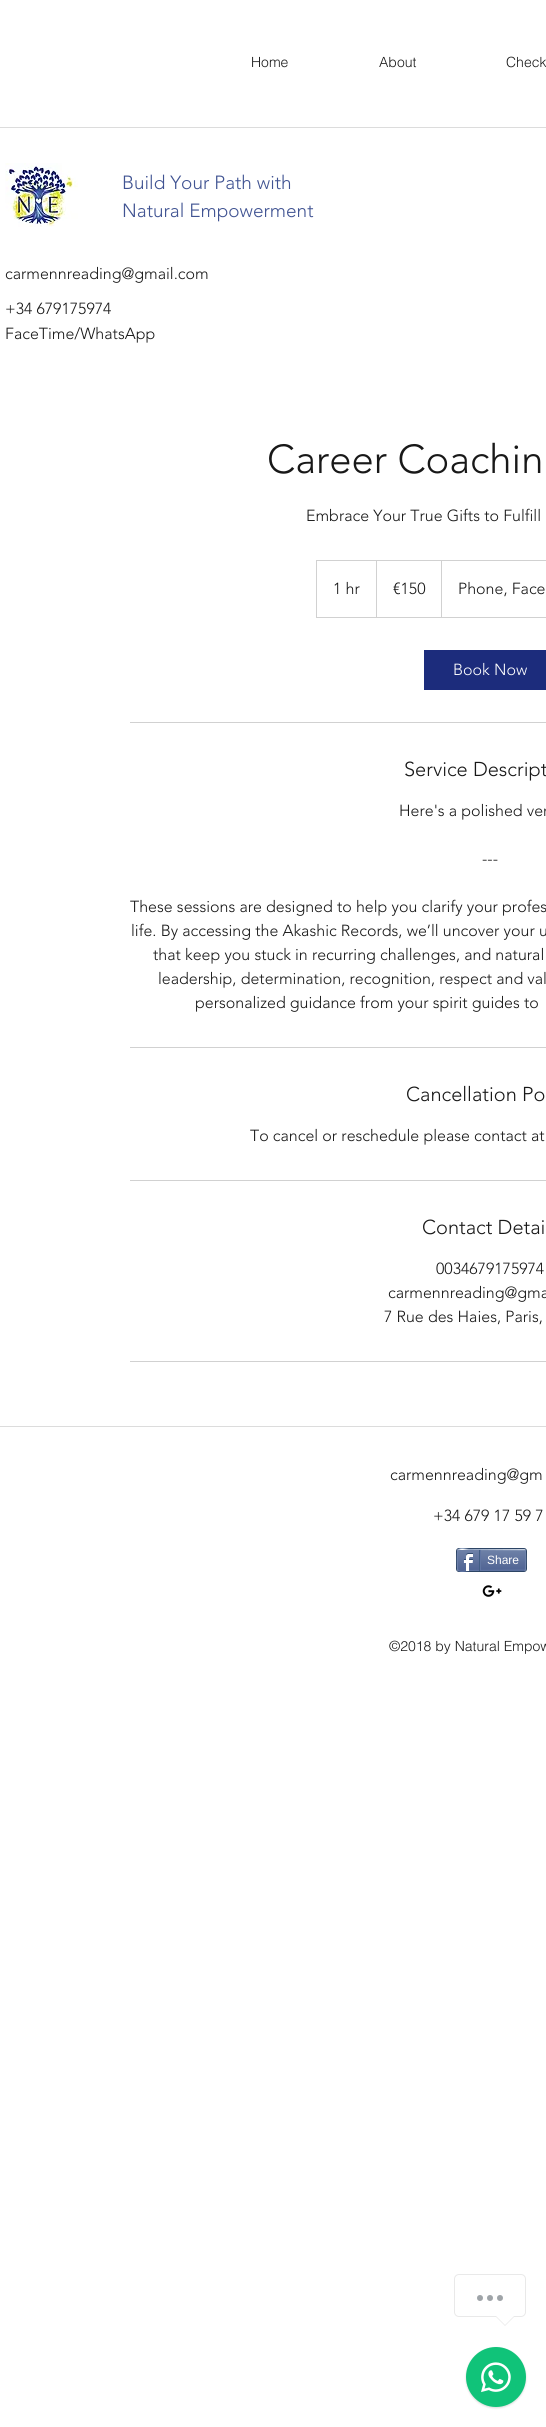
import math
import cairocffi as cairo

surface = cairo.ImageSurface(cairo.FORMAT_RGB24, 546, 2427)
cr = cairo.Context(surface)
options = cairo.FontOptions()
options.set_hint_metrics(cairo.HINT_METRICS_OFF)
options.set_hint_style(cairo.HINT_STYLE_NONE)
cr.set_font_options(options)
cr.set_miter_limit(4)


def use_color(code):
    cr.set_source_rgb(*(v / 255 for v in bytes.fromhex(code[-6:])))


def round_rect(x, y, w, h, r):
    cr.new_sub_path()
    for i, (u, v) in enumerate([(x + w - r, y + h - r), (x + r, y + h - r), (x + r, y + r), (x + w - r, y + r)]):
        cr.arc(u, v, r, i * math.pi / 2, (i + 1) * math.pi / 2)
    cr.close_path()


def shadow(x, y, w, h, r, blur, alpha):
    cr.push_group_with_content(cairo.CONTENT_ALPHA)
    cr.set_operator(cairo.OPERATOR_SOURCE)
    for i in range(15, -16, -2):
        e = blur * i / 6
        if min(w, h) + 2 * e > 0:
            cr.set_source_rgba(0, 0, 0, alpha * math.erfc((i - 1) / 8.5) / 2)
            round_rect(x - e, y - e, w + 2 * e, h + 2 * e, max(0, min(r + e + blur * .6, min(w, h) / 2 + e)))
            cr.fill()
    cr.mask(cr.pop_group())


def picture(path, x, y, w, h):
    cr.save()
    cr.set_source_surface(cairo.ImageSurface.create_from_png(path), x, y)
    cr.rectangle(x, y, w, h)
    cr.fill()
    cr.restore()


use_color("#ffffff")
cr.paint()
cr.select_font_face("helvetica Light")
cr.set_font_size(14)
use_color("#181818")
cr.move_to(251, 67)
cr.show_text("Home")
cr.move_to(379, 67)
cr.show_text("About")
cr.move_to(506, 67)
cr.show_text("Check")
use_color("#dcdcdc")
cr.rectangle(0, 127, 546, 1)
cr.fill()
picture("img1.png", 5, 163, 73, 64)
cr.select_font_face("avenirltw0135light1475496 Light")
cr.set_font_size(19)
use_color("#405392")
cr.move_to(122, 189)
cr.show_text("Build Your Path with")
cr.move_to(122, 217)
cr.show_text("Natural Empowerment")
cr.set_font_size(16)
use_color("#181818")
cr.move_to(5, 279)
cr.show_text("carmennreading@gmail.com")
cr.move_to(5, 314)
cr.show_text("+34 679175974")
cr.move_to(5, 339)
cr.show_text("FaceTime/WhatsApp")
cr.set_font_size(40)
cr.move_to(267, 473)
cr.show_text("Career Coachin")
cr.set_font_size(16)
cr.move_to(306, 521)
cr.show_text("Embrace Your True Gifts to Fulfill")
cr.rectangle(316.5, 560.5, 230, 57)
use_color("#d1d1d1")
cr.set_line_width(1)
cr.stroke()
use_color("#181818")
cr.move_to(333, 594)
cr.show_text("1 hr")
use_color("#d1d1d1")
cr.new_path()
cr.move_to(376, 617)
cr.line_to(376, 560)
cr.line_to(377, 561)
cr.line_to(377, 617)
cr.close_path()
cr.fill()
use_color("#181818")
cr.move_to(393, 594)
cr.show_text("€150")
use_color("#d1d1d1")
cr.new_path()
cr.move_to(441, 617)
cr.line_to(441, 560)
cr.line_to(442, 561)
cr.line_to(442, 617)
cr.close_path()
cr.fill()
use_color("#181818")
cr.move_to(458, 594)
cr.show_text("Phone, Face")
use_color("#1c2c7c")
cr.rectangle(424, 650, 122, 40)
cr.fill()
use_color("#ffffff")
cr.move_to(453, 675)
cr.show_text("Book Now")
use_color("#d1d1d1")
cr.rectangle(130, 722, 416, 1)
cr.fill()
cr.set_font_size(20)
use_color("#181818")
cr.move_to(404, 776)
cr.show_text("Service Descript")
cr.set_font_size(16)
cr.move_to(399, 816)
cr.show_text("Here's a polished ver")
cr.move_to(482, 864)
cr.show_text("---")
cr.move_to(130, 912)
cr.show_text("These sessions are designed to help you clarify your profes")
cr.move_to(131, 936)
cr.show_text("life. By accessing the Akashic Records, we’ll uncover your u")
cr.move_to(153, 960)
cr.show_text("that keep you stuck in recurring challenges, and natural")
cr.move_to(158, 984)
cr.show_text("leadership, determination, recognition, respect and val")
cr.move_to(195, 1008)
cr.show_text("personalized guidance from your spirit guides to")
use_color("#d1d1d1")
cr.rectangle(130, 1047, 416, 1)
cr.fill()
cr.set_font_size(20)
use_color("#181818")
cr.move_to(406, 1101)
cr.show_text("Cancellation Po")
cr.set_font_size(16)
cr.move_to(250, 1141)
cr.show_text("To cancel or reschedule please contact at")
use_color("#d1d1d1")
cr.rectangle(130, 1180, 416, 1)
cr.fill()
cr.set_font_size(20)
use_color("#181818")
cr.move_to(422, 1234)
cr.show_text("Contact Detai")
cr.set_font_size(16)
cr.move_to(436, 1274)
cr.show_text("0034679175974")
cr.move_to(388, 1298)
cr.show_text("carmennreading@gma")
cr.move_to(384, 1322)
cr.show_text("7 Rue des Haies, Paris,")
use_color("#d1d1d1")
cr.rectangle(130, 1361, 416, 1)
cr.fill()
use_color("#dcdcdc")
cr.rectangle(0, 1426, 546, 1)
cr.fill()
use_color("#181818")
cr.move_to(390, 1480)
cr.show_text("carmennreading@gm")
cr.move_to(433, 1521)
cr.show_text("+34 679 17 59 7")
round_rect(456.5, 1548.5, 70, 23, 2.5)
use_color("#2d4565")
cr.stroke()
picture("img2.png", 457, 1550, 69, 21)
cr.new_path()
cr.move_to(458, 1550)
cr.curve_to(461, 1547, 466, 1549.5, 470, 1549.5)
cr.line_to(525, 1550)
use_color("#9aabc6")
cr.stroke()
cr.new_path()
cr.move_to(525, 1550)
cr.curve_to(526, 1550.5, 526, 1569.5, 525, 1570)
use_color("#6f83ad")
cr.stroke()
cr.new_path()
cr.move_to(525, 1570)
cr.line_to(470, 1570.5)
cr.curve_to(466, 1570.5, 461, 1573, 458, 1570)
use_color("#6176a3")
cr.stroke()
cr.new_path()
cr.move_to(458, 1570)
cr.curve_to(457, 1569.5, 457, 1550.5, 458, 1550)
use_color("#6f83ad")
cr.stroke()
picture("img3.png", 463, 1553, 10, 18)
use_color("#425e85")
cr.rectangle(479, 1550, 1, 21)
cr.fill()
cr.select_font_face("Liberation Sans")
cr.set_font_size(12)
use_color("#ffffff")
cr.move_to(487, 1564)
cr.show_text("Share")
use_color("#6176a3")
cr.rectangle(480, 1550, 1, 20)
cr.fill()
picture("img4.png", 482, 1585, 20, 12)
cr.select_font_face("helvetica Light")
cr.set_font_size(14)
use_color("#181818")
cr.move_to(389, 1651)
cr.show_text("©2018 by Natural Empow")
round_rect(454.5, 2274.5, 71, 42, 4.5)
use_color("#e9e9e9")
cr.stroke()
use_color("#9fa4a8")
cr.arc(480, 2298, 3, 0, 2 * math.pi)
cr.fill()
cr.arc(490, 2298, 3, 0, 2 * math.pi)
cr.fill()
cr.arc(500, 2298, 3, 0, 2 * math.pi)
cr.fill()
use_color("#e9e9e9")
cr.new_path()
cr.move_to(495, 2316)
cr.line_to(515, 2316)
cr.line_to(505, 2326)
cr.close_path()
cr.fill()
use_color("#ffffff")
cr.new_path()
cr.move_to(496, 2316)
cr.line_to(514, 2316)
cr.line_to(505, 2325)
cr.close_path()
cr.fill()
use_color("#000000")
shadow(466, 2348, 60, 60, 30, 1, 0.15)
use_color("#10c379")
cr.arc(496, 2377, 30, 0, 2 * math.pi)
cr.fill()
picture("img5.png", 481, 2362, 30, 31)
surface.write_to_png("result.png")
